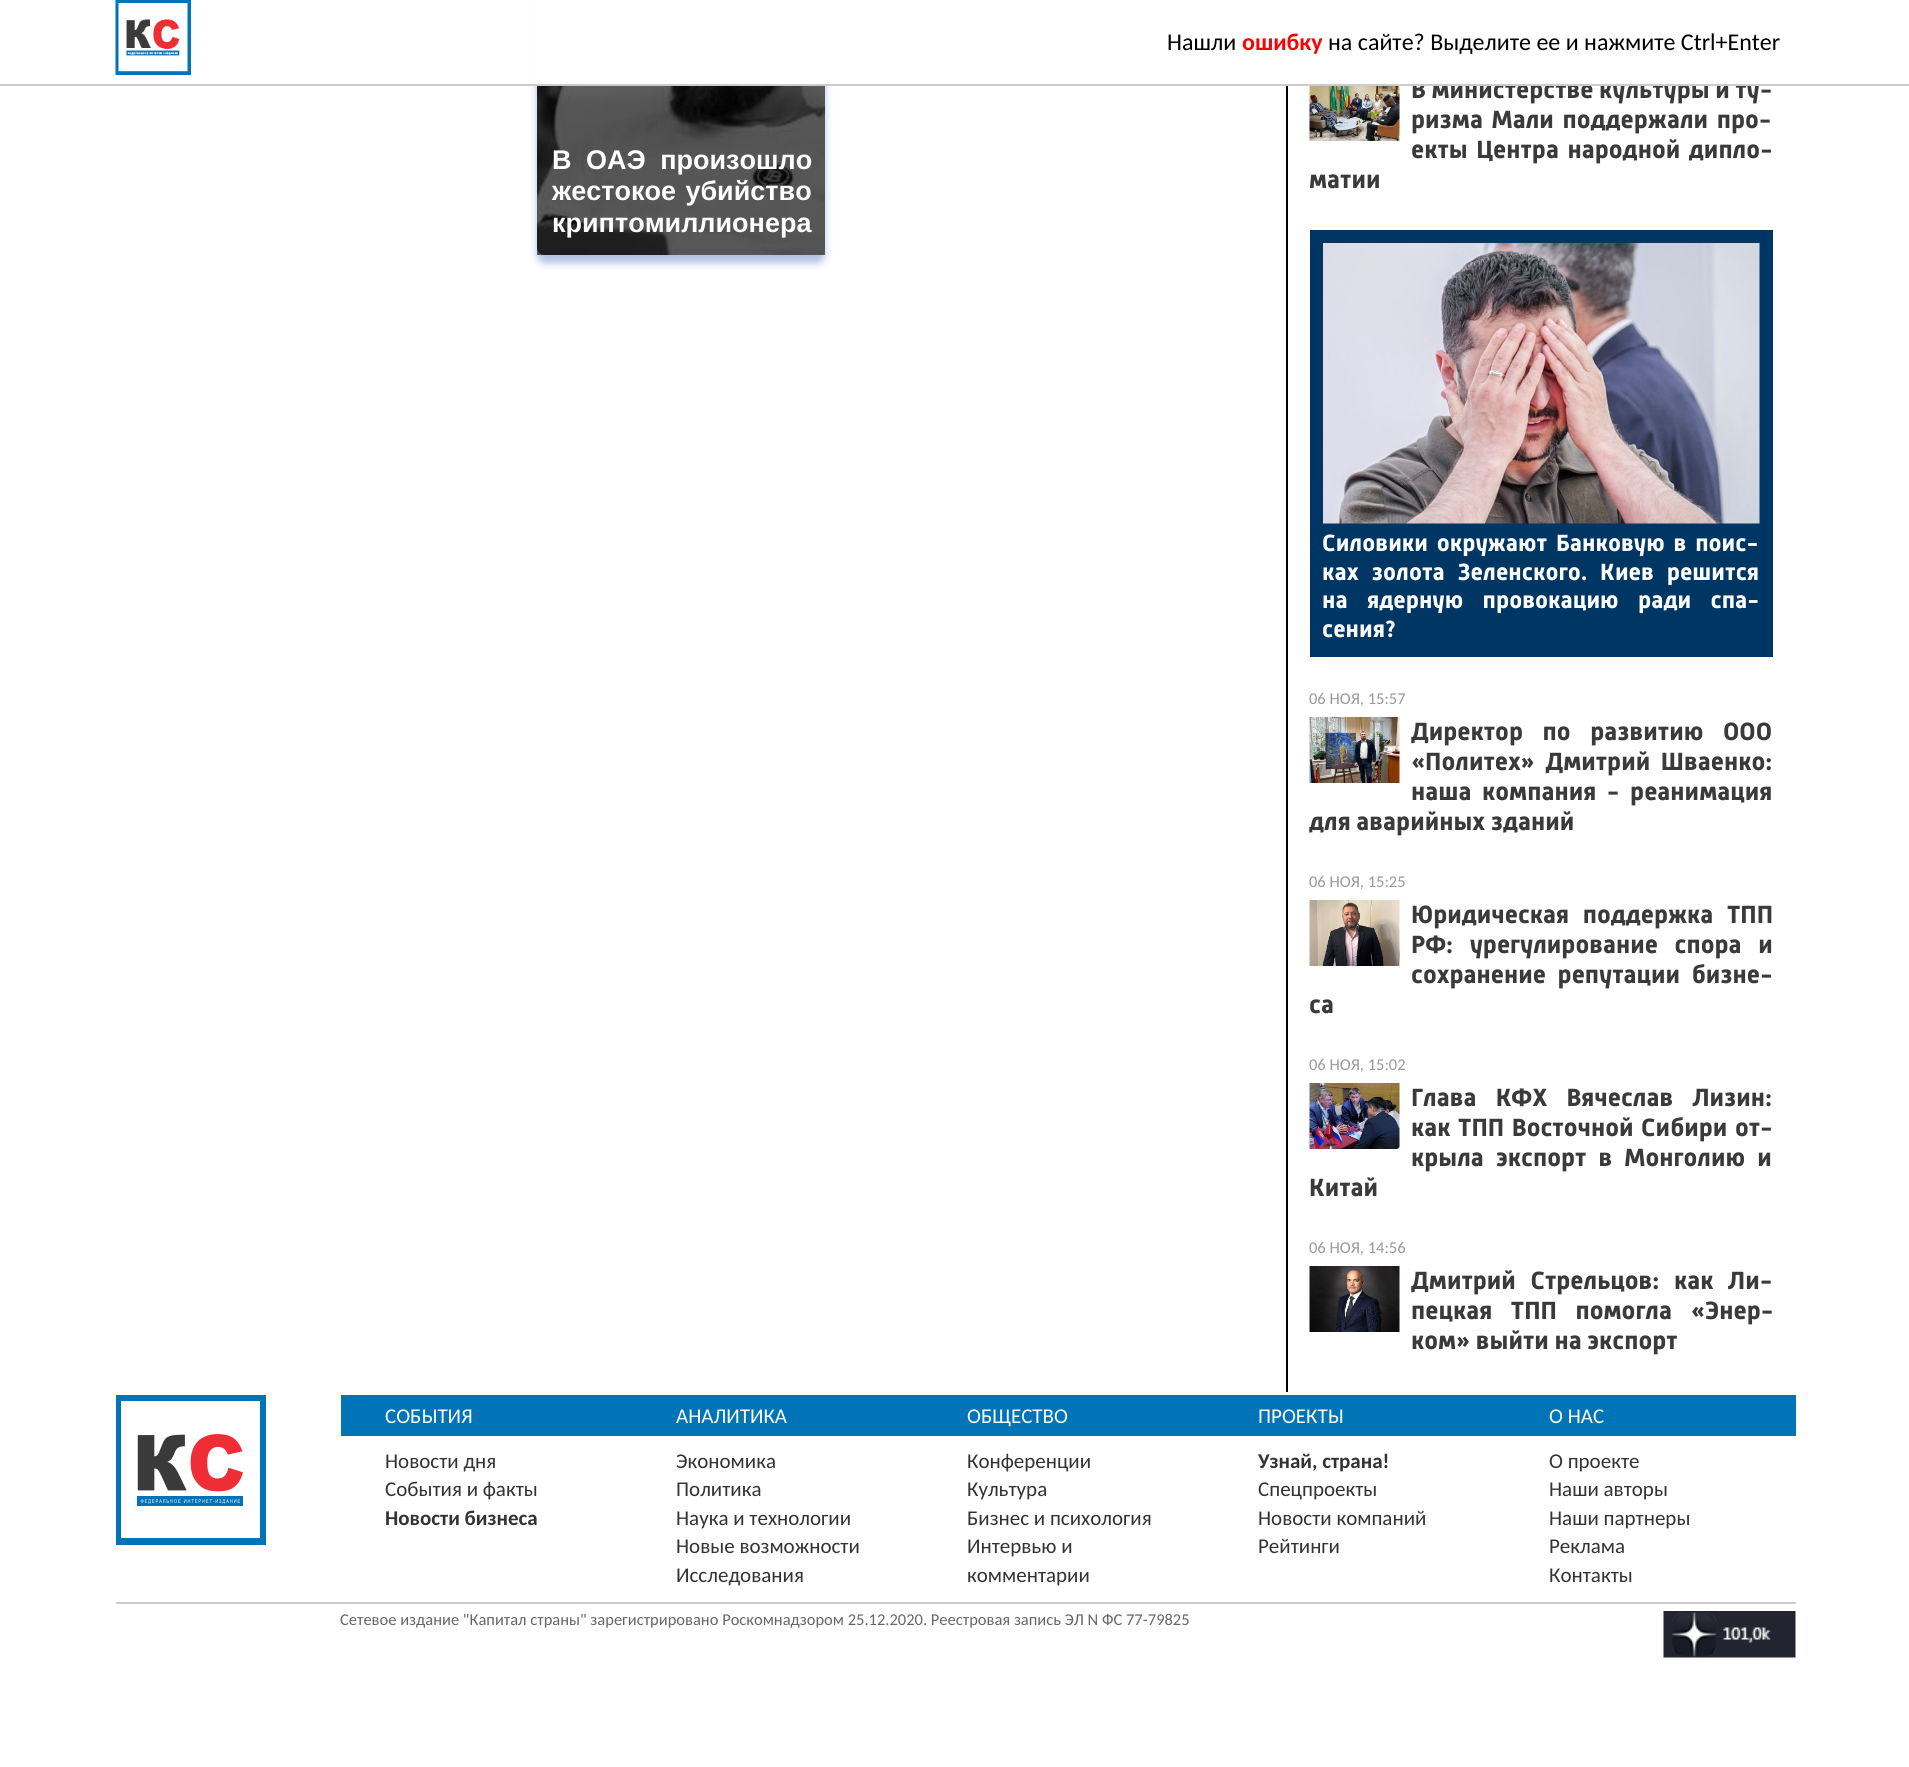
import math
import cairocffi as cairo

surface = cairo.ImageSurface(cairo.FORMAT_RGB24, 1909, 1767)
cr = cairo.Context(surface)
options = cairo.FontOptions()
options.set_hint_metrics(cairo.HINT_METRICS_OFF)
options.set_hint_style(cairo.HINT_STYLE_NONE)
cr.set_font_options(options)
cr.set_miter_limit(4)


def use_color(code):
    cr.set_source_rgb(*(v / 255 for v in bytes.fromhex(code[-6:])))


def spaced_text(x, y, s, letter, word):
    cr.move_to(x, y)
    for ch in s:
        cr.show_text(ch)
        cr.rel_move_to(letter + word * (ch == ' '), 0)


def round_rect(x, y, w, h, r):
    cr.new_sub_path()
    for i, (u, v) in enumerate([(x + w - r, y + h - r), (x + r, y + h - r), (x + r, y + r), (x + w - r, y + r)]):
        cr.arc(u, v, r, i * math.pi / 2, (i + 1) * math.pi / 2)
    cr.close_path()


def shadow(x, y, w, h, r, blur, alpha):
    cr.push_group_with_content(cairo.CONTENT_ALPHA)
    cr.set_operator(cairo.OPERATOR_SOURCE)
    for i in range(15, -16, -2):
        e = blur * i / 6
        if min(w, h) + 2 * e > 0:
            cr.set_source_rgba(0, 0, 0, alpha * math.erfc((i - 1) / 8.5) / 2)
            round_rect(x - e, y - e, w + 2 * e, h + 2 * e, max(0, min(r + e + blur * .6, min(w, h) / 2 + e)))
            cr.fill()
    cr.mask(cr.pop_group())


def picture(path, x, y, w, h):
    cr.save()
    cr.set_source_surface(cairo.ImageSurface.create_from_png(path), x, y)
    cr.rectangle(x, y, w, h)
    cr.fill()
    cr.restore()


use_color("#ffffff")
cr.paint()
use_color("#00299e")
shadow(537, -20, 288, 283, 8, 4, 0.3)
cr.select_font_face("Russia", cairo.FONT_SLANT_NORMAL, cairo.FONT_WEIGHT_BOLD)
cr.set_font_size(25.5)
use_color("#3a3a3b")
cr.move_to(1411, 98)
cr.show_text("В министерстве культуры и ту-")
use_color("#ffffff")
cr.rectangle(530, 0, 894, 84)
cr.fill()
use_color("#cccccc")
cr.rectangle(0, 84, 1909, 2)
cr.fill()
picture("img1.png", 115, 0, 76, 75)
cr.select_font_face("Carlito")
cr.set_font_size(24)
use_color("#000000")
cr.move_to(1167, 50)
cr.show_text("Нашли")
cr.select_font_face("Carlito", cairo.FONT_SLANT_NORMAL, cairo.FONT_WEIGHT_BOLD)
use_color("#ff0000")
cr.move_to(1242, 50)
cr.show_text("ошибку")
cr.select_font_face("Carlito")
use_color("#000000")
cr.move_to(1328, 50)
cr.show_text("на сайте? Выделите ее и нажмите Ctrl+Enter")
picture("img2.png", 537, 86, 288, 169)
gradient = cairo.LinearGradient(681, -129, 681, 255)
gradient.add_color_stop_rgba(0, 0, 0, 0, 0)
gradient.add_color_stop_rgba(0.61, 0, 0, 0, 0.6)
cr.set_source(gradient)
cr.rectangle(537, 86, 288, 169)
cr.fill()
cr.select_font_face("Liberation Sans", cairo.FONT_SLANT_NORMAL, cairo.FONT_WEIGHT_BOLD)
cr.set_font_size(27)
use_color("#ffffff")
spaced_text(552, 169, "В ОАЭ произошло", 0, 7)
spaced_text(552, 200, "жестокое убийство", 0, 2)
cr.move_to(552, 232)
cr.show_text("криптомиллионера")
use_color("#000000")
cr.rectangle(1286, 86, 2, 1306)
cr.fill()
cr.select_font_face("Russia", cairo.FONT_SLANT_NORMAL, cairo.FONT_WEIGHT_BOLD)
cr.set_font_size(25.5)
use_color("#3a3a3b")
spaced_text(1411, 128, "ризма Мали поддержали про-", 0, 3)
spaced_text(1411, 158, "екты Центра народной дипло-", 0, 3)
cr.move_to(1309, 188)
cr.show_text("матии")
picture("img3.png", 1309, 86, 91, 55)
use_color("#003663")
cr.rectangle(1310, 230, 463, 427)
cr.fill()
picture("img4.png", 1323, 243, 437, 281)
cr.set_font_size(24)
use_color("#ffffff")
spaced_text(1322, 551, "Силовики окружают Банковую в поис-", 0, 3.5)
spaced_text(1322, 580, "ках золота Зеленского. Киев решится", 0, 7.5)
spaced_text(1322, 608, "на ядерную провокацию ради спа-", 0, 14)
cr.move_to(1322, 637)
cr.show_text("сения?")
cr.select_font_face("Carlito")
cr.set_font_size(16.5)
use_color("#999999")
cr.move_to(1309, 704)
cr.show_text("06 НОЯ, 15:57")
picture("img5.png", 1309, 717, 91, 66)
cr.select_font_face("Russia", cairo.FONT_SLANT_NORMAL, cairo.FONT_WEIGHT_BOLD)
cr.set_font_size(25.5)
use_color("#3a3a3b")
spaced_text(1411, 740, "Директор по развитию ООО", 0, 14)
spaced_text(1411, 770, "«Политех» Дмитрий Шваенко:", 0, 5)
spaced_text(1411, 800, "наша компания - реанимация", 0, 5)
cr.move_to(1309, 830)
cr.show_text("для аварийных зданий")
cr.select_font_face("Carlito")
cr.set_font_size(16.5)
use_color("#999999")
cr.move_to(1309, 887)
cr.show_text("06 НОЯ, 15:25")
picture("img6.png", 1309, 900, 91, 66)
cr.select_font_face("Russia", cairo.FONT_SLANT_NORMAL, cairo.FONT_WEIGHT_BOLD)
cr.set_font_size(25.5)
use_color("#3a3a3b")
spaced_text(1411, 923, "Юридическая поддержка ТПП", 0, 8)
spaced_text(1411, 953, "РФ: урегулирование спора и", 0, 11)
spaced_text(1411, 983, "сохранение репутации бизне-", 0, 6)
cr.move_to(1309, 1013)
cr.show_text("са")
cr.select_font_face("Carlito")
cr.set_font_size(16.5)
use_color("#999999")
cr.move_to(1309, 1070)
cr.show_text("06 НОЯ, 15:02")
picture("img7.png", 1309, 1083, 91, 66)
cr.select_font_face("Russia", cairo.FONT_SLANT_NORMAL, cairo.FONT_WEIGHT_BOLD)
cr.set_font_size(25.5)
use_color("#3a3a3b")
spaced_text(1411, 1106, "Глава КФХ Вячеслав Лизин:", 0, 13.5)
spaced_text(1411, 1136, "как ТПП Восточной Сибири от-", 0, 2)
spaced_text(1411, 1166, "крыла экспорт в Монголию и", 0, 6.5)
cr.move_to(1309, 1196)
cr.show_text("Китай")
cr.select_font_face("Carlito")
cr.set_font_size(16.5)
use_color("#999999")
cr.move_to(1309, 1253)
cr.show_text("06 НОЯ, 14:56")
picture("img8.png", 1309, 1266, 91, 66)
cr.select_font_face("Russia", cairo.FONT_SLANT_NORMAL, cairo.FONT_WEIGHT_BOLD)
cr.set_font_size(25.5)
use_color("#3a3a3b")
spaced_text(1411, 1289, "Дмитрий Стрельцов: как Ли-", 0, 9)
spaced_text(1411, 1319, "пецкая ТПП помогла «Энер-", 0, 13)
cr.move_to(1411, 1349)
cr.show_text("ком» выйти на экспорт")
picture("img9.png", 116, 1395, 150, 150)
use_color("#0074b7")
cr.rectangle(341, 1395, 1455, 41)
cr.fill()
cr.select_font_face("Carlito")
cr.set_font_size(21)
use_color("#ffffff")
cr.move_to(385, 1423)
cr.show_text("СОБЫТИЯ")
use_color("#333333")
cr.move_to(385, 1468)
cr.show_text("Новости дня")
cr.move_to(385, 1496)
cr.show_text("События и факты")
cr.select_font_face("Carlito", cairo.FONT_SLANT_NORMAL, cairo.FONT_WEIGHT_BOLD)
cr.move_to(385, 1525)
cr.show_text("Новости бизнеса")
cr.select_font_face("Carlito")
use_color("#ffffff")
cr.move_to(676, 1423)
cr.show_text("АНАЛИТИКА")
use_color("#333333")
cr.move_to(676, 1468)
cr.show_text("Экономика")
cr.move_to(676, 1496)
cr.show_text("Политика")
cr.move_to(676, 1525)
cr.show_text("Наука и технологии")
cr.move_to(676, 1553)
cr.show_text("Новые возможности")
cr.move_to(676, 1582)
cr.show_text("Исследования")
use_color("#ffffff")
cr.move_to(967, 1423)
cr.show_text("ОБЩЕСТВО")
use_color("#333333")
cr.move_to(967, 1468)
cr.show_text("Конференции")
cr.move_to(967, 1496)
cr.show_text("Культура")
cr.move_to(967, 1525)
cr.show_text("Бизнес и психология")
cr.move_to(967, 1553)
cr.show_text("Интервью и")
cr.move_to(967, 1582)
cr.show_text("комментарии")
use_color("#ffffff")
cr.move_to(1258, 1423)
cr.show_text("ПРОЕКТЫ")
cr.select_font_face("Carlito", cairo.FONT_SLANT_NORMAL, cairo.FONT_WEIGHT_BOLD)
use_color("#333333")
cr.move_to(1258, 1468)
cr.show_text("Узнай, страна!")
cr.select_font_face("Carlito")
cr.move_to(1258, 1496)
cr.show_text("Спецпроекты")
cr.move_to(1258, 1525)
cr.show_text("Новости компаний")
cr.move_to(1258, 1553)
cr.show_text("Рейтинги")
use_color("#ffffff")
cr.move_to(1549, 1423)
cr.show_text("О НАС")
use_color("#333333")
cr.move_to(1549, 1468)
cr.show_text("О проекте")
cr.move_to(1549, 1496)
cr.show_text("Наши авторы")
cr.move_to(1549, 1525)
cr.show_text("Наши партнеры")
cr.move_to(1549, 1553)
cr.show_text("Реклама")
cr.move_to(1549, 1582)
cr.show_text("Контакты")
use_color("#cccccc")
cr.rectangle(116, 1602, 1680, 2)
cr.fill()
cr.set_font_size(16.5)
use_color("#666666")
cr.move_to(340, 1625)
cr.show_text("Сетевое издание \"Капитал страны\" зарегистрировано Роскомнадзором 25.12.2020. Реестровая запись ЭЛ N ФС 77-79825")
picture("img10.png", 1663, 1611, 133, 47)
surface.write_to_png("result.png")
